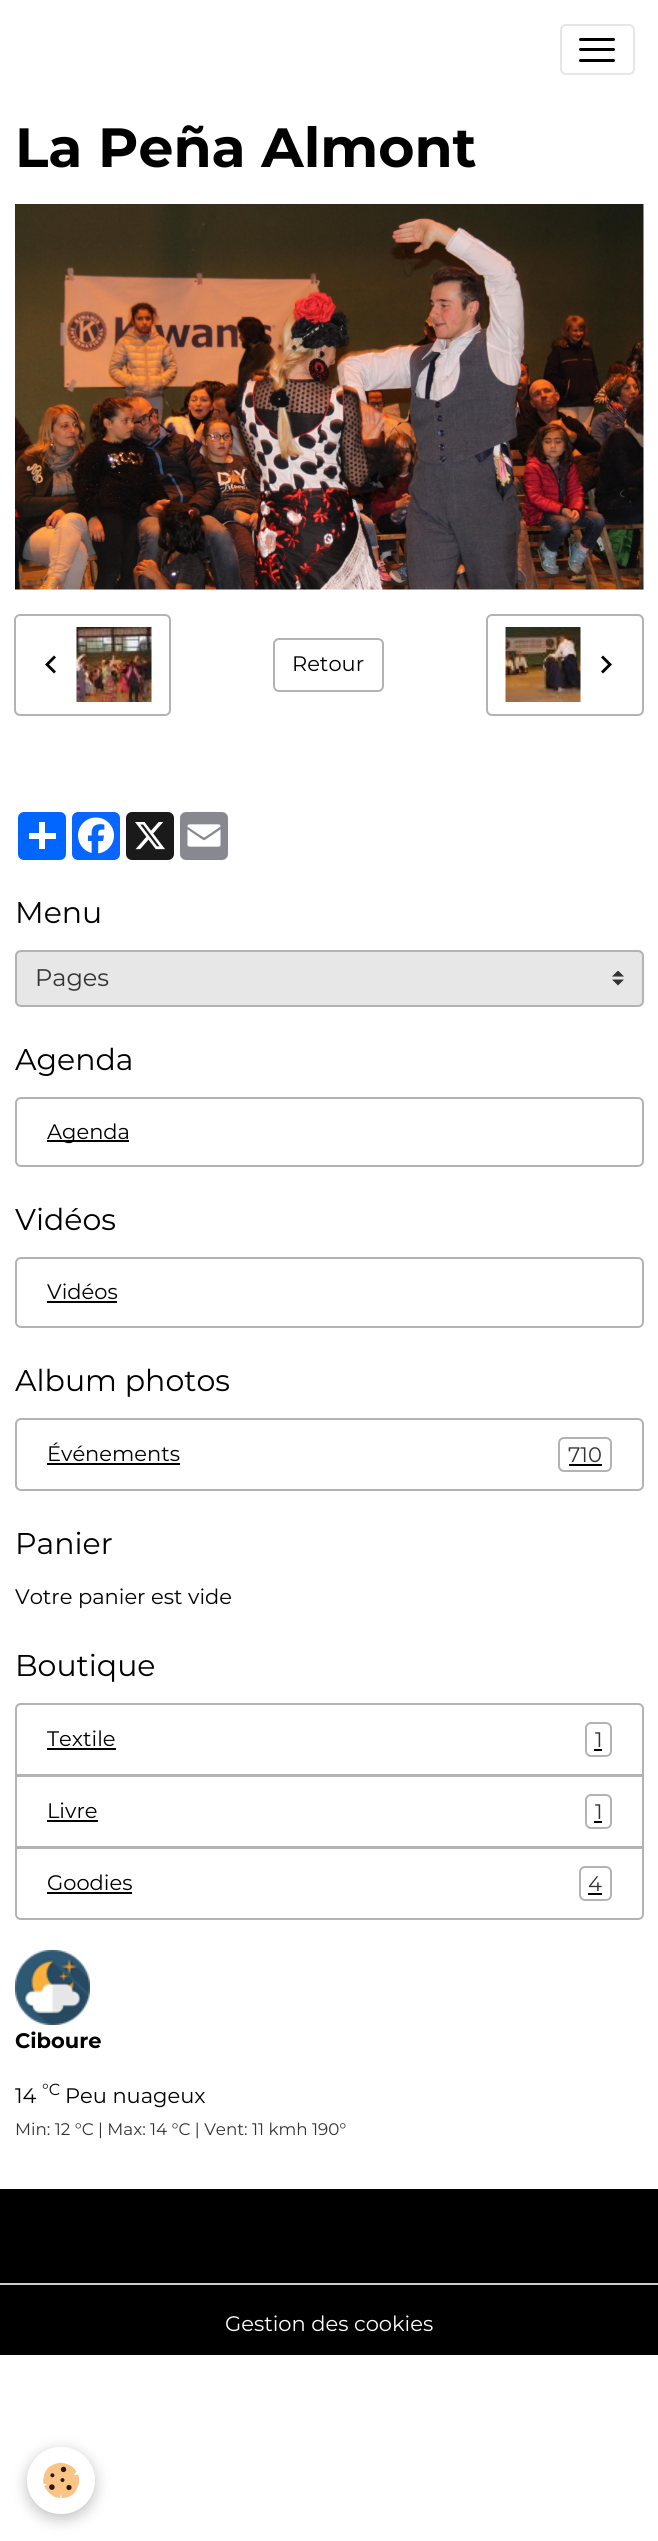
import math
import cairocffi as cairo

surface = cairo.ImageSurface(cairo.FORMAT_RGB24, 658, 2541)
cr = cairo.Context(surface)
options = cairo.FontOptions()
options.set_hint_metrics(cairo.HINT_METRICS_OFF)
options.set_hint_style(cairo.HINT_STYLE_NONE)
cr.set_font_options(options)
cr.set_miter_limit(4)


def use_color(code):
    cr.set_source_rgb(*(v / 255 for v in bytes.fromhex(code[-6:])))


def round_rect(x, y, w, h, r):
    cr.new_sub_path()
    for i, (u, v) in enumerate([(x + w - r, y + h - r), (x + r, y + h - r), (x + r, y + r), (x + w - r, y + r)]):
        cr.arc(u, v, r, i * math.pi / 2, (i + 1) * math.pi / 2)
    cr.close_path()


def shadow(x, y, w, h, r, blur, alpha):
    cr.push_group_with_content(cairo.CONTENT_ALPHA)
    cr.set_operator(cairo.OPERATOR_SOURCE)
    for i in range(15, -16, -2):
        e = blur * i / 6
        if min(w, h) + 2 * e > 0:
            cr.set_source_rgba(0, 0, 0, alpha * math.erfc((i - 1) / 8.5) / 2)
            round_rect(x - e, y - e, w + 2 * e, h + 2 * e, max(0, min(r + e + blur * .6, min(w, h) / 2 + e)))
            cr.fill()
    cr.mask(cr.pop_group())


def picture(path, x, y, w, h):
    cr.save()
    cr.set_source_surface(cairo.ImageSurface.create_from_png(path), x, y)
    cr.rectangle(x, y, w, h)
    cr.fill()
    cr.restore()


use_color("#ffffff")
cr.paint()
round_rect(561, 25, 73, 49, 5)
use_color("#e6e6e6")
cr.stroke()
use_color("#000000")
round_rect(579, 38, 36, 3, 1.5)
cr.fill()
round_rect(579, 48, 36, 3, 1.5)
cr.fill()
round_rect(579, 59, 36, 3, 1.5)
cr.fill()
cr.select_font_face("Montserrat", cairo.FONT_SLANT_NORMAL, cairo.FONT_WEIGHT_BOLD)
cr.set_font_size(55.25)
cr.move_to(15, 167)
cr.show_text("La Peña Almont")
picture("img1.png", 15, 204, 629, 386)
round_rect(15, 615, 155, 100, 5)
use_color("#b3b3b3")
cr.stroke()
use_color("#000000")
cr.new_path()
cr.move_to(56, 657.5)
cr.line_to(49, 664.5)
cr.line_to(56, 671.5)
cr.line_to(54, 673.5)
cr.line_to(45, 664.5)
cr.line_to(54, 655.5)
cr.close_path()
cr.fill()
picture("img2.png", 76, 627, 76, 75)
round_rect(274, 639, 109, 52, 5)
use_color("#b3b3b3")
cr.stroke()
cr.select_font_face("Montserrat")
cr.set_font_size(21)
use_color("#000000")
cr.move_to(292, 671)
cr.show_text("Retour")
round_rect(487, 615, 156, 100, 5)
use_color("#b3b3b3")
cr.stroke()
picture("img3.png", 505, 627, 76, 75)
use_color("#000000")
cr.new_path()
cr.move_to(603, 655.5)
cr.line_to(612, 664.5)
cr.line_to(603, 673.5)
cr.line_to(601, 671.5)
cr.line_to(608, 664.5)
cr.line_to(601, 657.5)
cr.close_path()
cr.fill()
use_color("#0166ff")
round_rect(18, 812, 48, 48, 6)
cr.fill()
use_color("#ffffff")
cr.rectangle(39, 822, 6, 27)
cr.fill()
cr.rectangle(29, 833, 27, 6)
cr.fill()
use_color("#0866ff")
round_rect(72, 812, 48, 48, 6)
cr.fill()
picture("img4.png", 78, 817, 36, 37)
use_color("#1a1a1a")
round_rect(126, 812, 48, 48, 6)
cr.fill()
picture("img5.png", 135, 822, 30, 28)
use_color("#888990")
round_rect(180, 812, 48, 48, 6)
cr.fill()
picture("img6.png", 187, 824, 34, 23)
cr.set_font_size(30)
use_color("#000000")
cr.move_to(15, 923)
cr.show_text("Menu")
use_color("#e7e7e7")
round_rect(15, 950, 629, 57, 6)
cr.fill()
picture("img7.png", 612, 971, 12, 15)
round_rect(16, 951, 627, 55, 5)
use_color("#b3b3b3")
cr.stroke()
cr.set_font_size(24)
use_color("#333333")
cr.move_to(35, 986)
cr.show_text("Pages")
cr.set_font_size(30)
use_color("#000000")
cr.move_to(15, 1070)
cr.show_text("Agenda")
round_rect(16, 1098, 627, 68, 5)
use_color("#b3b3b3")
cr.stroke()
use_color("#000000")
cr.rectangle(47, 1140, 82, 2)
cr.fill()
cr.set_font_size(21)
cr.move_to(47, 1139)
cr.show_text("Agenda")
cr.set_font_size(30)
cr.move_to(15, 1230)
cr.show_text("Vidéos")
round_rect(16, 1258, 627, 69, 5)
use_color("#b3b3b3")
cr.stroke()
cr.set_font_size(21)
use_color("#000000")
cr.move_to(47, 1299)
cr.show_text("Vidéos")
cr.rectangle(47, 1301, 70, 2)
cr.fill()
cr.set_font_size(30)
cr.move_to(15, 1391)
cr.show_text("Album photos")
round_rect(16, 1419, 627, 71, 5)
use_color("#b3b3b3")
cr.stroke()
cr.set_font_size(21)
use_color("#000000")
cr.move_to(47, 1461)
cr.show_text("Événements")
cr.rectangle(47, 1463, 133, 2)
cr.fill()
round_rect(559, 1438, 52, 33, 5)
use_color("#b3b3b3")
cr.stroke()
use_color("#333333")
cr.move_to(568, 1462)
cr.show_text("710")
use_color("#000000")
cr.rectangle(569, 1464, 33, 2)
cr.fill()
cr.set_font_size(30)
cr.move_to(15, 1554)
cr.show_text("Panier")
cr.set_font_size(21)
cr.move_to(15, 1604)
cr.show_text("Votre panier est vide")
cr.set_font_size(30)
cr.move_to(15, 1676)
cr.show_text("Boutique")
cr.new_path()
cr.move_to(21, 1704)
cr.line_to(638, 1704)
cr.curve_to(641, 1704, 643, 1706, 643, 1709)
cr.line_to(643, 1775)
cr.line_to(16, 1775)
cr.line_to(16, 1709)
cr.curve_to(16, 1706, 18, 1704, 21, 1704)
cr.close_path()
use_color("#b3b3b3")
cr.stroke()
cr.set_font_size(21)
use_color("#000000")
cr.move_to(47, 1746)
cr.show_text("Textile")
cr.rectangle(47, 1748, 69, 2)
cr.fill()
round_rect(586, 1723, 25, 33, 5)
use_color("#b3b3b3")
cr.stroke()
use_color("#333333")
cr.move_to(595, 1747)
cr.show_text("1")
use_color("#000000")
cr.rectangle(594, 1749, 8, 2)
cr.fill()
cr.rectangle(16, 1776, 627, 71)
use_color("#b3b3b3")
cr.stroke()
use_color("#000000")
cr.move_to(47, 1818)
cr.show_text("Livre")
cr.rectangle(47, 1820, 51, 2)
cr.fill()
round_rect(586, 1795, 25, 33, 5)
use_color("#b3b3b3")
cr.stroke()
use_color("#333333")
cr.move_to(595, 1819)
cr.show_text("1")
use_color("#000000")
cr.rectangle(594, 1821, 8, 2)
cr.fill()
cr.new_path()
cr.move_to(16, 1848)
cr.line_to(643, 1848)
cr.line_to(643, 1914)
cr.curve_to(643, 1917, 641, 1919, 638, 1919)
cr.line_to(21, 1919)
cr.curve_to(18, 1919, 16, 1917, 16, 1914)
cr.close_path()
use_color("#b3b3b3")
cr.stroke()
use_color("#000000")
cr.move_to(47, 1890)
cr.show_text("Goodies")
cr.rectangle(47, 1892, 85, 2)
cr.fill()
round_rect(580, 1867, 31, 33, 5)
use_color("#b3b3b3")
cr.stroke()
use_color("#333333")
cr.move_to(588, 1891)
cr.show_text("4")
use_color("#000000")
cr.rectangle(588, 1893, 14, 2)
cr.fill()
picture("img8.png", 15, 1950, 75, 75)
cr.select_font_face("Montserrat", cairo.FONT_SLANT_NORMAL, cairo.FONT_WEIGHT_BOLD)
cr.move_to(15, 2048)
cr.show_text("Ciboure")
cr.select_font_face("Montserrat")
cr.move_to(15, 2103)
cr.show_text("14")
cr.set_font_size(16)
cr.move_to(42, 2095)
cr.show_text("°C")
cr.set_font_size(21)
cr.move_to(65, 2103)
cr.show_text("Peu nuageux")
cr.set_font_size(16.75)
use_color("#333333")
cr.move_to(15, 2135)
cr.show_text("Min: 12 °C | Max: 14 °C | Vent: 11 kmh 190°")
use_color("#000000")
cr.rectangle(0, 2189, 658, 166)
cr.fill()
use_color("#cccccc")
cr.rectangle(0, 2283, 658, 2)
cr.fill()
cr.set_font_size(21)
use_color("#ffffff")
cr.move_to(225, 2331)
cr.show_text("Gestion des cookies")
use_color("#000000")
shadow(27, 2451, 68, 68, 34, 7.5, 0.24)
use_color("#ffffff")
round_rect(27, 2447, 68, 67, 33.5)
cr.fill()
picture("img9.png", 43, 2462, 37, 36)
surface.write_to_png("result.png")
